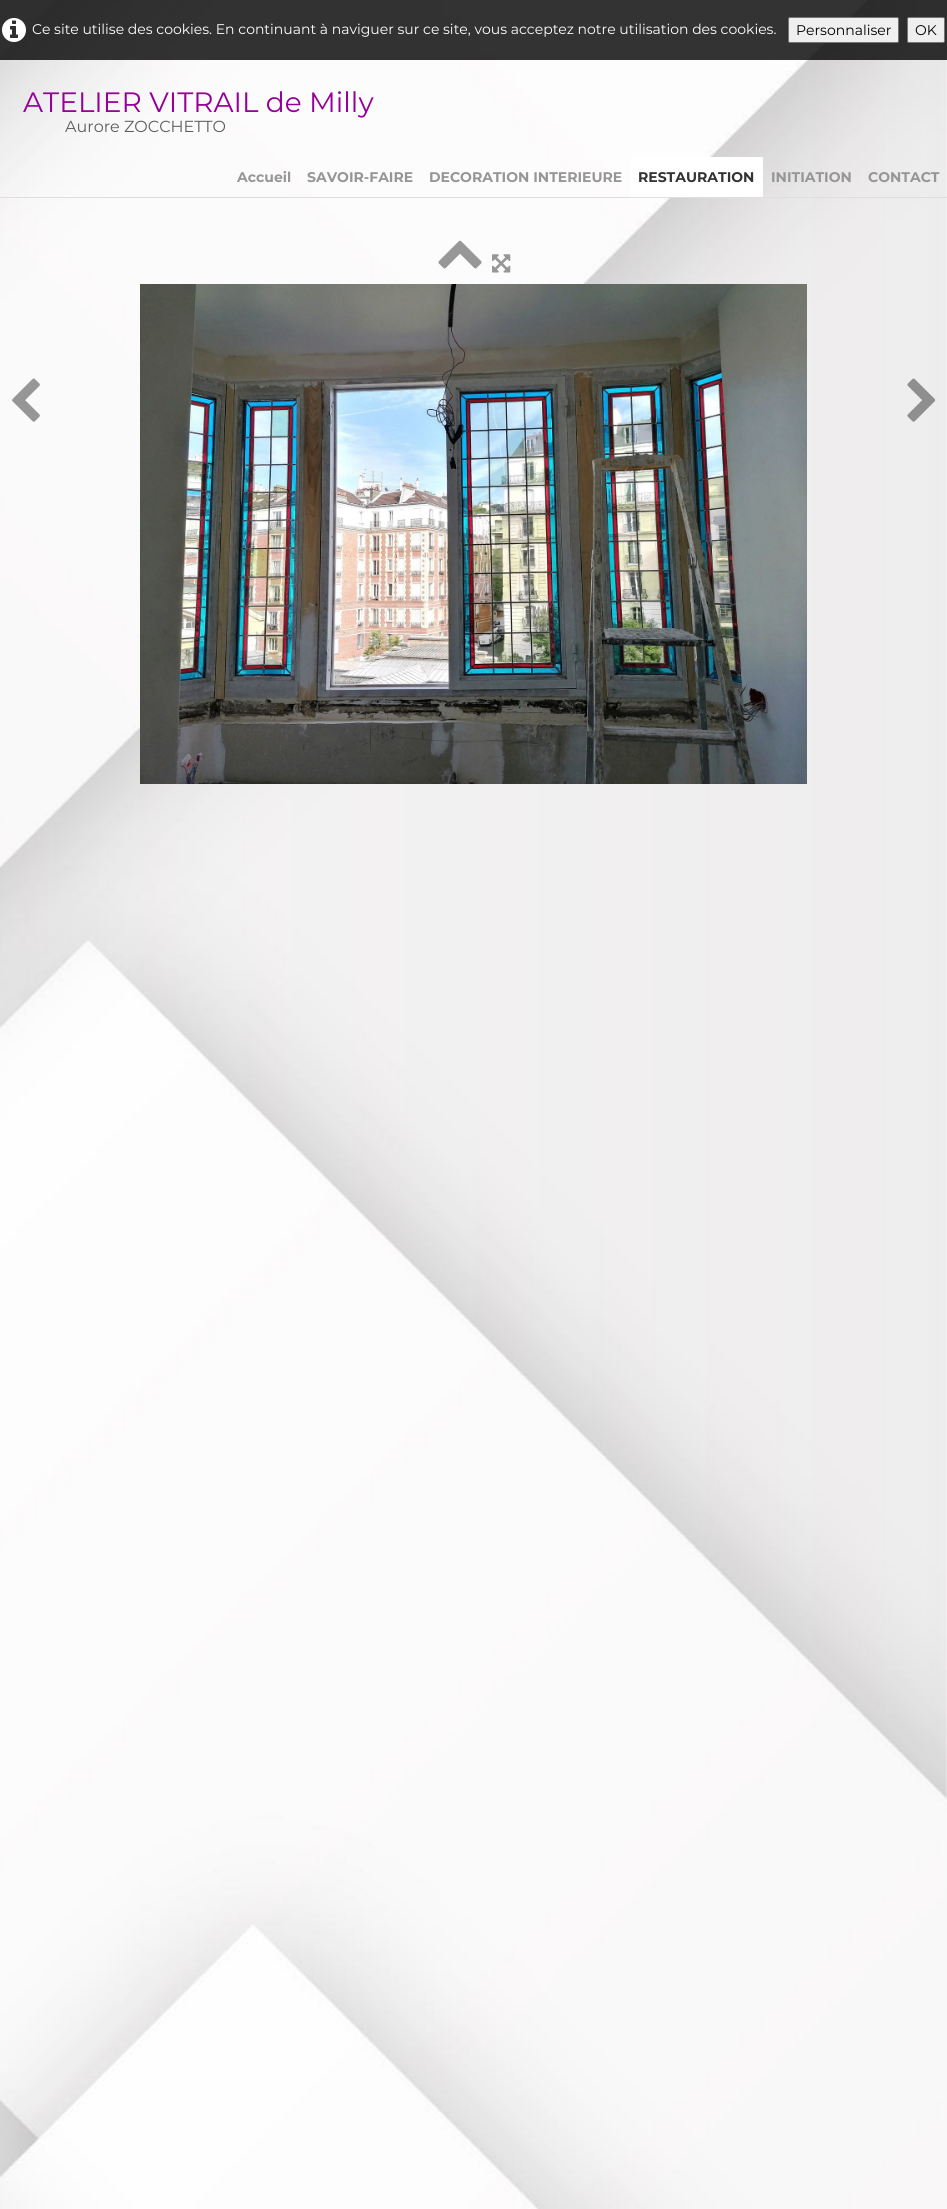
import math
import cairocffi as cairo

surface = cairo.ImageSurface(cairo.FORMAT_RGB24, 947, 2209)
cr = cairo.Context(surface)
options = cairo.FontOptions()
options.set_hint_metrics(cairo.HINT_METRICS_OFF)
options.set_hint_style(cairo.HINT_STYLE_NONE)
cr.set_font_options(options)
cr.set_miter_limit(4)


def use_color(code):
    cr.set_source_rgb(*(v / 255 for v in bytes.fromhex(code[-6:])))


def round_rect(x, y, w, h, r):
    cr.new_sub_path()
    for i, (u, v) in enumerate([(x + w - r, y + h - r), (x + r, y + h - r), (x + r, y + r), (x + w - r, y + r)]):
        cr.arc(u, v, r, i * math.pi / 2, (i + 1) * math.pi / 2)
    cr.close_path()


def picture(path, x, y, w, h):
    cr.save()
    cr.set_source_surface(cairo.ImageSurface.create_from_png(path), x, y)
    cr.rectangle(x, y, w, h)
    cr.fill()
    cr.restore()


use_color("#ffffff")
cr.paint()
picture("img1.png", 0, 0, 947, 2209)
cr.set_source_rgba(0, 0, 0, 0.8)
cr.rectangle(0, 0, 947, 60)
cr.fill()
picture("img2.png", 2, 18, 24, 24)
cr.select_font_face("Montserrat")
cr.set_font_size(14)
use_color("#ffffff")
cr.move_to(32, 34)
cr.show_text("Ce site utilise des cookies. En continuant à naviguer sur ce site, vous acceptez notre utilisation des cookies.")
use_color("#efefef")
round_rect(788.5, 17.5, 110, 25, 1.5)
cr.fill_preserve()
use_color("#767676")
cr.set_line_width(1)
cr.stroke()
use_color("#000000")
cr.move_to(796, 35)
cr.show_text("Personnaliser")
use_color("#efefef")
round_rect(907.5, 17.5, 37, 25, 1.5)
cr.fill_preserve()
use_color("#767676")
cr.stroke()
use_color("#000000")
cr.move_to(915, 35)
cr.show_text("OK")
use_color("#dedede")
cr.rectangle(0, 197, 947, 1)
cr.fill()
cr.set_font_size(28)
use_color("#960099")
cr.move_to(23, 112)
cr.show_text("ATELIER VITRAIL de Milly")
cr.set_font_size(16)
use_color("#5e5e5e")
cr.move_to(65, 132)
cr.show_text("Aurore ZOCCHETTO")
cr.select_font_face("Montserrat", cairo.FONT_SLANT_NORMAL, cairo.FONT_WEIGHT_BOLD)
cr.set_font_size(14)
use_color("#969696")
cr.move_to(237, 182)
cr.show_text("Accueil")
cr.move_to(307, 182)
cr.show_text("SAVOIR-FAIRE")
cr.move_to(429, 182)
cr.show_text("DECORATION INTERIEURE")
use_color("#ffffff")
cr.rectangle(630, 157, 133, 40)
cr.fill()
use_color("#333333")
cr.move_to(638, 182)
cr.show_text("RESTAURATION")
use_color("#969696")
cr.move_to(771, 182)
cr.show_text("INITIATION")
cr.move_to(868, 182)
cr.show_text("CONTACT")
picture("img3.png", 438, 240, 44, 29)
picture("img4.png", 492, 254, 19, 19)
picture("img5.png", 12, 378, 28, 44)
picture("img6.png", 140, 284, 667, 500)
picture("img7.png", 907, 378, 29, 44)
surface.write_to_png("result.png")
